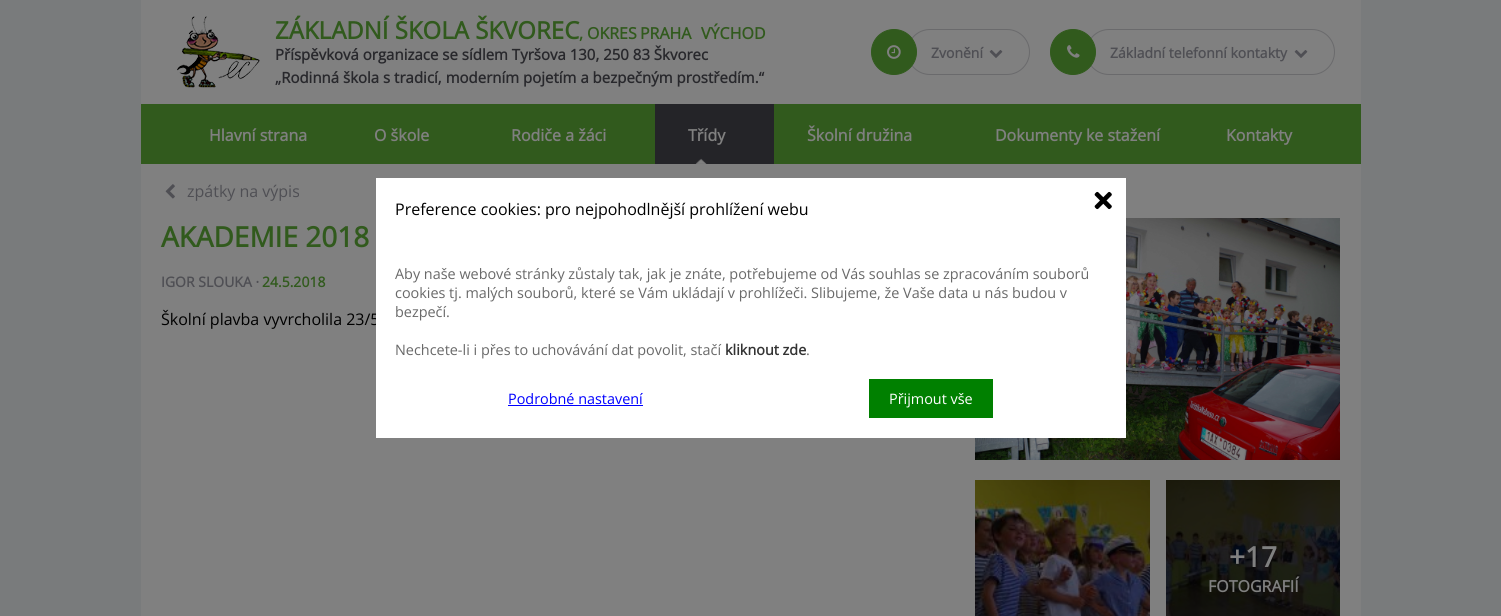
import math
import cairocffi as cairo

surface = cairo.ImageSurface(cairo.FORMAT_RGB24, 1501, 616)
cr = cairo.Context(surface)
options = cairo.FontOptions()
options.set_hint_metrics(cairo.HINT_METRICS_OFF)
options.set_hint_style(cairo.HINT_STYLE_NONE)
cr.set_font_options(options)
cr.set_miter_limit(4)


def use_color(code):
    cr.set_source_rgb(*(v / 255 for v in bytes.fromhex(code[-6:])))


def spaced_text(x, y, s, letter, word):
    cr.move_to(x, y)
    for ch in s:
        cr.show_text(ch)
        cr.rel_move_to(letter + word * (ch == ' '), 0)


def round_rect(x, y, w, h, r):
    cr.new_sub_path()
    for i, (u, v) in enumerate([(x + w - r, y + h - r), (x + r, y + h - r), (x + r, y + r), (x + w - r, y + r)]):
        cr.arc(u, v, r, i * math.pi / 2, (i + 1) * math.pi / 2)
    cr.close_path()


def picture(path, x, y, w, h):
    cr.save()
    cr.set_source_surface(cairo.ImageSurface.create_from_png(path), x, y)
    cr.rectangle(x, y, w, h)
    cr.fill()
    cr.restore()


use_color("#797b7c")
cr.paint()
use_color("#808080")
cr.rectangle(141, 0, 1220, 616)
cr.fill()
picture("img1.png", 177, 16, 83, 72)
cr.select_font_face("Open Sans", cairo.FONT_SLANT_NORMAL, cairo.FONT_WEIGHT_BOLD)
cr.set_font_size(24)
use_color("#315a1d")
cr.move_to(275, 39)
cr.show_text("ZÁKLADNÍ ŠKOLA ŠKVOREC")
cr.set_font_size(16)
cr.move_to(579, 39)
cr.show_text(",")
spaced_text(587, 39, "OKRES PRAHA‑VÝCHOD", 0, -1)
cr.set_font_size(15)
use_color("#28282c")
cr.move_to(275, 60)
cr.show_text("Příspěvková organizace se sídlem Tyršova 130, 250 83 Škvorec")
cr.move_to(275, 83)
cr.show_text("„Rodinná škola s tradicí, moderním pojetím a bezpečným prostředím.“")
round_rect(907.5, 29.5, 122, 45, 22.5)
use_color("#6a6a6c")
cr.set_line_width(1)
cr.stroke()
use_color("#315a1d")
cr.arc(894, 52, 22.5, 0, 2 * math.pi)
cr.fill_preserve()
cr.stroke()
picture("img2.png", 887, 45, 14, 14)
cr.set_font_size(14)
use_color("#4f4f54")
cr.move_to(931, 58)
cr.show_text("Zvonění")
picture("img3.png", 989, 50, 14, 8)
round_rect(1086.5, 29.5, 248, 45, 22.5)
use_color("#6a6a6c")
cr.stroke()
use_color("#315a1d")
cr.arc(1073, 52, 22.5, 0, 2 * math.pi)
cr.fill_preserve()
cr.stroke()
picture("img4.png", 1067, 45, 13, 13)
use_color("#4f4f54")
cr.move_to(1110, 58)
cr.show_text("Základní telefonní kontakty")
picture("img3.png", 1294, 50, 14, 8)
use_color("#315a1d")
cr.rectangle(141, 104, 1220, 60)
cr.fill()
cr.set_font_size(16)
use_color("#808080")
cr.move_to(209, 141)
cr.show_text("Hlavní strana")
cr.move_to(374, 141)
cr.show_text("O škole")
cr.move_to(511, 141)
cr.show_text("Rodiče a žáci")
use_color("#242428")
cr.rectangle(655, 104, 119, 60)
cr.fill()
use_color("#808080")
cr.move_to(688, 141)
cr.show_text("Třídy")
picture("img5.png", 695, 158, 12, 6)
cr.move_to(807, 141)
cr.show_text("Školní družina")
cr.move_to(995, 141)
cr.show_text("Dokumenty ke stažení")
cr.move_to(1226, 141)
cr.show_text("Kontakty")
picture("img6.png", 165, 184, 10, 15)
cr.select_font_face("Open Sans")
use_color("#4f4f54")
cr.move_to(187, 197)
cr.show_text("zpátky na výpis")
cr.select_font_face("Open Sans", cairo.FONT_SLANT_NORMAL, cairo.FONT_WEIGHT_BOLD)
cr.set_font_size(28)
use_color("#315a1d")
cr.move_to(161, 247)
cr.show_text("AKADEMIE 2018")
cr.set_font_size(14)
use_color("#4f4f54")
cr.move_to(161, 287)
cr.show_text("IGOR SLOUKA ·")
use_color("#315a1d")
cr.move_to(262, 287)
cr.show_text("24.5.2018")
cr.select_font_face("Open Sans")
cr.set_font_size(16)
use_color("#000000")
cr.move_to(161, 325)
cr.show_text("Školní plavba vyvrcholila 23/5")
picture("img7.png", 975, 218, 365, 242)
picture("img8.png", 975, 480, 175, 136)
picture("img9.png", 1166, 480, 174, 136)
cr.select_font_face("Open Sans", cairo.FONT_SLANT_NORMAL, cairo.FONT_WEIGHT_BOLD)
cr.set_font_size(28)
use_color("#808080")
cr.move_to(1229, 567)
cr.show_text("+17")
cr.set_font_size(16)
cr.move_to(1208, 592)
cr.show_text("FOTOGRAFIÍ")
use_color("#ffffff")
cr.rectangle(376, 178, 750, 260)
cr.fill()
cr.select_font_face("Open Sans")
use_color("#000000")
cr.move_to(395, 215)
cr.show_text("Preference cookies: pro nejpohodlnější prohlížení webu")
picture("img10.png", 1094, 191, 18, 19)
cr.set_font_size(14.4)
use_color("#696969")
cr.move_to(395, 279)
cr.show_text("Aby naše webové stránky zůstaly tak, jak je znáte, potřebujeme od Vás souhlas se zpracováním souborů")
cr.move_to(395, 298)
cr.show_text("cookies tj. malých souborů, které se Vám ukládají v prohlížeči. Slibujeme, že Vaše data u nás budou v")
cr.move_to(395, 317)
cr.show_text("bezpečí.")
cr.move_to(395, 355)
cr.show_text("Nechcete-li i přes to uchovávání dat povolit, stačí")
cr.select_font_face("Open Sans", cairo.FONT_SLANT_NORMAL, cairo.FONT_WEIGHT_BOLD)
use_color("#333333")
cr.move_to(725, 355)
cr.show_text("kliknout zde")
cr.select_font_face("Open Sans")
use_color("#696969")
cr.move_to(806, 355)
cr.show_text(".")
use_color("#0000ff")
cr.move_to(508, 404)
cr.show_text("Podrobné nastavení")
cr.rectangle(508, 405, 135, 1)
cr.fill()
use_color("#008000")
cr.rectangle(869, 379, 124, 39)
cr.fill()
use_color("#ffffff")
cr.move_to(889, 404)
cr.show_text("Přijmout vše")
surface.write_to_png("result.png")
